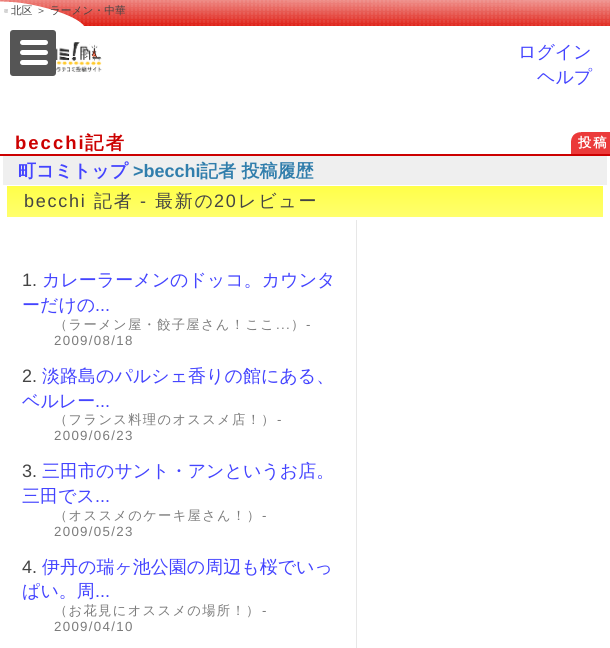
import math
import cairocffi as cairo

surface = cairo.ImageSurface(cairo.FORMAT_RGB24, 610, 648)
cr = cairo.Context(surface)
options = cairo.FontOptions()
options.set_hint_metrics(cairo.HINT_METRICS_OFF)
options.set_hint_style(cairo.HINT_STYLE_NONE)
cr.set_font_options(options)
cr.set_miter_limit(4)


def use_color(code):
    cr.set_source_rgb(*(v / 255 for v in bytes.fromhex(code[-6:])))


def spaced_text(x, y, s, letter, word):
    cr.move_to(x, y)
    for ch in s:
        cr.show_text(ch)
        cr.rel_move_to(letter + word * (ch == ' '), 0)


def round_rect(x, y, w, h, r):
    cr.new_sub_path()
    for i, (u, v) in enumerate([(x + w - r, y + h - r), (x + r, y + h - r), (x + r, y + r), (x + w - r, y + r)]):
        cr.arc(u, v, r, i * math.pi / 2, (i + 1) * math.pi / 2)
    cr.close_path()


def picture(path, x, y, w, h):
    cr.save()
    cr.set_source_surface(cairo.ImageSurface.create_from_png(path), x, y)
    cr.rectangle(x, y, w, h)
    cr.fill()
    cr.restore()


use_color("#ffffff")
cr.paint()
picture("img1.png", 0, 0, 610, 26)
picture("img2.png", 4, 9, 4, 4)
cr.select_font_face("WenQuanYi Zen Hei Medium")
cr.set_font_size(10.75)
use_color("#444444")
cr.move_to(11, 14)
cr.show_text("北区 ＞ ラーメン・中華")
picture("img3.png", 56, 42, 46, 30)
cr.set_font_size(18)
use_color("#4444ff")
cr.move_to(518, 58)
cr.show_text("ログイン")
cr.move_to(537, 83)
cr.show_text("ヘルプ")
use_color("#555555")
round_rect(10, 30, 46, 46, 3)
cr.fill()
use_color("#ffffff")
round_rect(20, 40, 28, 5, 2.5)
cr.fill()
round_rect(20, 50, 28, 5, 2.5)
cr.fill()
round_rect(20, 60, 28, 5, 2.5)
cr.fill()
cr.select_font_face("Liberation Sans", cairo.FONT_SLANT_NORMAL, cairo.FONT_WEIGHT_BOLD)
cr.set_font_size(18.5)
use_color("#cc0000")
spaced_text(15, 149, "becchi", 2, 0)
cr.select_font_face("WenQuanYi Zen Hei", cairo.FONT_SLANT_NORMAL, cairo.FONT_WEIGHT_BOLD)
spaced_text(85, 149, "記者", 2, 0)
cr.rectangle(0, 154, 610, 2)
cr.fill()
use_color("#eb3a3a")
cr.rectangle(571, 132, 39, 22)
cr.fill()
picture("img4.png", 571, 132, 10, 9)
cr.set_font_size(13.3)
use_color("#ffffff")
spaced_text(578, 147, "投稿", 2, 0)
use_color("#efefef")
cr.rectangle(3, 156, 604, 29)
cr.fill()
cr.set_font_size(18)
use_color("#4444ff")
cr.move_to(18, 177)
cr.show_text("町コミトップ")
cr.select_font_face("Liberation Sans", cairo.FONT_SLANT_NORMAL, cairo.FONT_WEIGHT_BOLD)
use_color("#317eac")
cr.move_to(133, 177)
cr.show_text(">becchi")
cr.select_font_face("WenQuanYi Zen Hei", cairo.FONT_SLANT_NORMAL, cairo.FONT_WEIGHT_BOLD)
cr.move_to(200, 177)
cr.show_text("記者 投稿履歴")
picture("img5.png", 7, 186, 596, 31)
cr.select_font_face("Liberation Sans")
use_color("#444444")
spaced_text(24, 207, "becchi", 1.75, 0)
cr.select_font_face("WenQuanYi Zen Hei Medium")
spaced_text(94, 207, "記者", 1.75, 0)
cr.select_font_face("Liberation Sans")
spaced_text(140, 207, "-", 1.75, 0)
cr.select_font_face("WenQuanYi Zen Hei Medium")
spaced_text(155, 207, "最新の", 1.75, 0)
cr.select_font_face("Liberation Sans")
spaced_text(214, 207, "20", 1.75, 0)
cr.select_font_face("WenQuanYi Zen Hei Medium")
spaced_text(238, 207, "レビュー", 1.75, 0)
use_color("#e7e7e7")
cr.rectangle(356, 220, 1, 428)
cr.fill()
cr.select_font_face("Liberation Sans")
use_color("#444444")
cr.move_to(22, 286)
cr.show_text("1.")
cr.select_font_face("WenQuanYi Zen Hei Medium")
use_color("#4444ff")
cr.move_to(42, 286)
cr.show_text("カレーラーメンのドッコ。カウンタ")
cr.move_to(22, 311)
cr.show_text("ーだけの")
cr.select_font_face("Liberation Sans")
cr.move_to(95, 311)
cr.show_text("...")
cr.select_font_face("WenQuanYi Zen Hei Medium")
cr.set_font_size(13.3)
use_color("#7b7b7b")
spaced_text(54, 329, "（ラーメン屋・餃子屋さん！ここ", 1.3, 0)
spaced_text(291, 329, "）", 1.3, 0)
cr.select_font_face("Liberation Sans")
spaced_text(306, 329, "-", 1.3, 0)
spaced_text(276, 329, "...", 1.3, 0)
spaced_text(54, 345, "2009/08/18", 1.3, 0)
cr.set_font_size(18)
use_color("#444444")
cr.move_to(22, 382)
cr.show_text("2.")
cr.select_font_face("WenQuanYi Zen Hei Medium")
use_color("#4444ff")
cr.move_to(42, 382)
cr.show_text("淡路島のパルシェ香りの館にある、")
cr.move_to(22, 407)
cr.show_text("ベルレー")
cr.select_font_face("Liberation Sans")
cr.move_to(95, 407)
cr.show_text("...")
cr.select_font_face("WenQuanYi Zen Hei Medium")
cr.set_font_size(13.3)
use_color("#7b7b7b")
spaced_text(54, 424, "（フランス料理のオススメ店！）", 1.3, 0)
cr.select_font_face("Liberation Sans")
spaced_text(277, 424, "-", 1.3, 0)
spaced_text(54, 440, "2009/06/23", 1.3, 0)
cr.set_font_size(18)
use_color("#444444")
cr.move_to(22, 477)
cr.show_text("3.")
cr.select_font_face("WenQuanYi Zen Hei Medium")
use_color("#4444ff")
cr.move_to(42, 477)
cr.show_text("三田市のサント・アンというお店。")
cr.move_to(22, 502)
cr.show_text("三田でス")
cr.select_font_face("Liberation Sans")
cr.move_to(95, 502)
cr.show_text("...")
cr.select_font_face("WenQuanYi Zen Hei Medium")
cr.set_font_size(13.3)
use_color("#7b7b7b")
spaced_text(54, 520, "（オススメのケーキ屋さん！）", 1.3, 0)
cr.select_font_face("Liberation Sans")
spaced_text(262, 520, "-", 1.3, 0)
spaced_text(54, 536, "2009/05/23", 1.3, 0)
cr.set_font_size(18)
use_color("#444444")
cr.move_to(22, 573)
cr.show_text("4.")
cr.select_font_face("WenQuanYi Zen Hei Medium")
use_color("#4444ff")
cr.move_to(42, 573)
cr.show_text("伊丹の瑞ヶ池公園の周辺も桜でいっ")
cr.move_to(22, 597)
cr.show_text("ぱい。周")
cr.select_font_face("Liberation Sans")
cr.move_to(95, 597)
cr.show_text("...")
cr.select_font_face("WenQuanYi Zen Hei Medium")
cr.set_font_size(13.3)
use_color("#7b7b7b")
spaced_text(54, 615, "（お花見にオススメの場所！）", 1.3, 0)
cr.select_font_face("Liberation Sans")
spaced_text(262, 615, "-", 1.3, 0)
spaced_text(54, 631, "2009/04/10", 1.3, 0)
surface.write_to_png("result.png")
